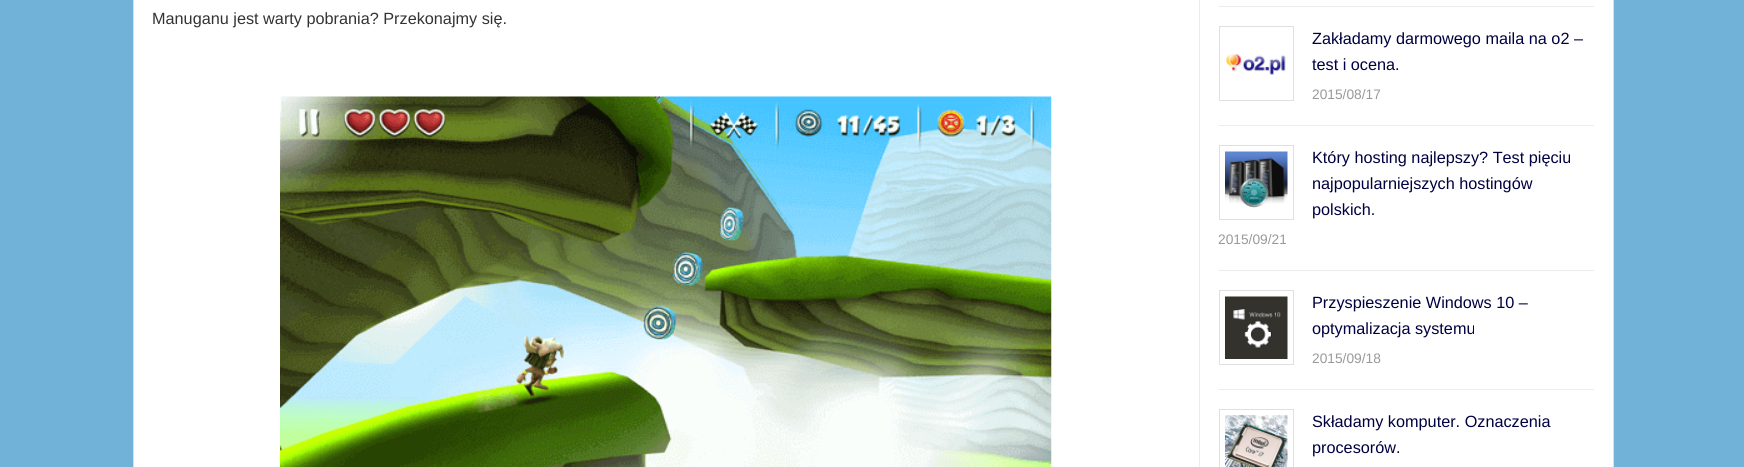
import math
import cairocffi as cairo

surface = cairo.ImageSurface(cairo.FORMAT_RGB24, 1744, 467)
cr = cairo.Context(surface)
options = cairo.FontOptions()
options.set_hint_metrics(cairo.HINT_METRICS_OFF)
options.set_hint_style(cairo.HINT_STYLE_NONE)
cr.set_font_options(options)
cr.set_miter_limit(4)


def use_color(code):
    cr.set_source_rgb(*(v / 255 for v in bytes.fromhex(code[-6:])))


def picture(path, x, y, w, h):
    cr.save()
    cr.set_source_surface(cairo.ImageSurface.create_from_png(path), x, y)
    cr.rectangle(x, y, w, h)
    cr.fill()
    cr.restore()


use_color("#70b2d8")
cr.paint()
use_color("#ffffff")
cr.rectangle(133.5, -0.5, 1480, 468)
cr.fill_preserve()
use_color("#dfdfdf")
cr.set_line_width(1)
cr.stroke()
use_color("#ecede8")
cr.rectangle(1199, 0, 1, 467)
cr.fill()
cr.select_font_face("Liberation Sans")
cr.set_font_size(16.25)
use_color("#333333")
cr.move_to(152, 24)
cr.show_text("Manuganu jest warty pobrania? Przekonajmy się.")
picture("img1.png", 280, 96, 772, 371)
use_color("#ecede8")
cr.rectangle(1219, 6, 375, 1)
cr.fill()
cr.rectangle(1219, 125, 375, 1)
cr.fill()
cr.rectangle(1219.5, 26.5, 74, 74)
use_color("#e0e0e0")
cr.stroke()
picture("img2.png", 1226, 53, 60, 22)
use_color("#000040")
cr.move_to(1312, 44)
cr.show_text("Zakładamy darmowego maila na o2 –")
cr.move_to(1312, 70)
cr.show_text("test i ocena.")
cr.set_font_size(13.75)
use_color("#999999")
cr.move_to(1312, 99)
cr.show_text("2015/08/17")
use_color("#ecede8")
cr.rectangle(1219, 270, 375, 1)
cr.fill()
cr.rectangle(1219.5, 145.5, 74, 74)
use_color("#e0e0e0")
cr.stroke()
picture("img3.png", 1225, 151, 63, 57)
cr.set_font_size(16.25)
use_color("#000040")
cr.move_to(1312, 163)
cr.show_text("Który hosting najlepszy? Test pięciu")
cr.move_to(1312, 189)
cr.show_text("najpopularniejszych hostingów")
cr.move_to(1312, 215)
cr.show_text("polskich.")
cr.set_font_size(13.75)
use_color("#999999")
cr.move_to(1218, 244)
cr.show_text("2015/09/21")
use_color("#ecede8")
cr.rectangle(1219, 389, 375, 1)
cr.fill()
cr.rectangle(1219.5, 290.5, 74, 74)
use_color("#e0e0e0")
cr.stroke()
picture("img4.png", 1225, 296, 63, 63)
cr.set_font_size(16.25)
use_color("#000040")
cr.move_to(1312, 308)
cr.show_text("Przyspieszenie Windows 10 –")
cr.move_to(1312, 334)
cr.show_text("optymalizacja systemu")
cr.set_font_size(13.75)
use_color("#999999")
cr.move_to(1312, 363)
cr.show_text("2015/09/18")
cr.rectangle(1219.5, 409.5, 74, 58)
use_color("#e0e0e0")
cr.stroke()
picture("img5.png", 1225, 415, 63, 52)
cr.set_font_size(16.25)
use_color("#000040")
cr.move_to(1312, 427)
cr.show_text("Składamy komputer. Oznaczenia")
cr.move_to(1312, 453)
cr.show_text("procesorów.")
surface.write_to_png("result.png")
